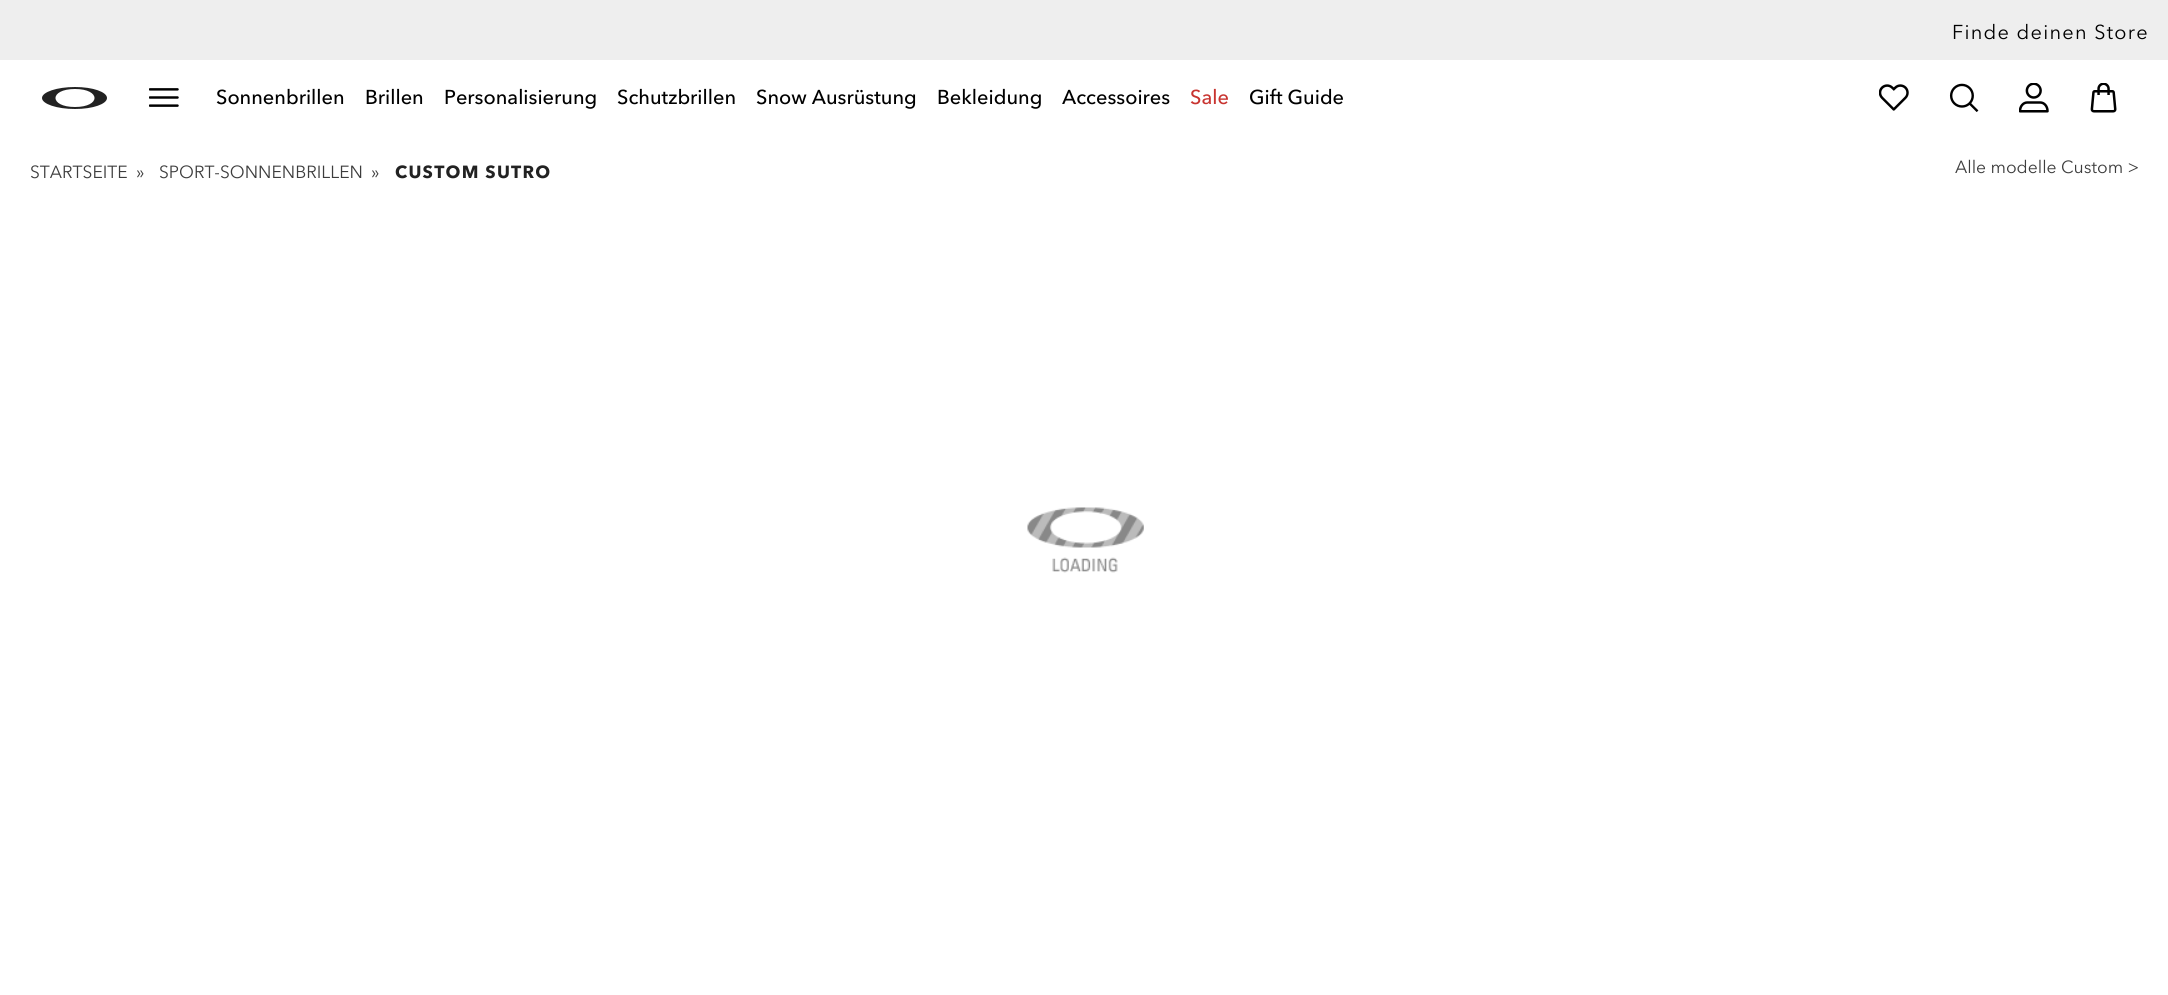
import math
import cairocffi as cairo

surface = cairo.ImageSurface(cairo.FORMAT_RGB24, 2168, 995)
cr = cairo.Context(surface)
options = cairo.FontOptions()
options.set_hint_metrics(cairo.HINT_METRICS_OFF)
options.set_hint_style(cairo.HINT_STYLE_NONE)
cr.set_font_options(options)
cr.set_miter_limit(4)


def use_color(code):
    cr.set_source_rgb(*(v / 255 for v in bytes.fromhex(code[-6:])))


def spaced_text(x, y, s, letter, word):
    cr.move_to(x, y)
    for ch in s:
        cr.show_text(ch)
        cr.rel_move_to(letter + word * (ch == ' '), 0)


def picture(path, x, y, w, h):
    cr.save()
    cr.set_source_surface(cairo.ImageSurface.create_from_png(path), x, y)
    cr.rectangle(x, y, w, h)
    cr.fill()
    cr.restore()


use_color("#ffffff")
cr.paint()
use_color("#eeeeee")
cr.rectangle(0, 0, 2168, 60)
cr.fill()
cr.select_font_face("Avenir Next")
cr.set_font_size(20)
use_color("#000000")
spaced_text(1952, 39, "Finde deinen Store", 1.25, 0)
use_color("#222222")
cr.set_fill_rule(cairo.FILL_RULE_EVEN_ODD)
cr.new_path()
cr.move_to(75, 107)
cr.curve_to(49, 107, 49, 89, 75, 89)
cr.curve_to(101, 89, 101, 107, 75, 107)
cr.close_path()
cr.move_to(75, 87)
cr.curve_to(57, 87, 42, 92, 42, 98)
cr.curve_to(42, 104, 57, 109, 75, 109)
cr.curve_to(93, 109, 107, 104, 107, 98)
cr.curve_to(107, 92, 93, 87, 75, 87)
cr.close_path()
cr.fill()
picture("img1.png", 149, 88, 30, 19)
cr.select_font_face("Avenir Next Medium")
use_color("#000000")
cr.move_to(216, 104)
cr.show_text("Sonnenbrillen")
cr.move_to(365, 104)
cr.show_text("Brillen")
cr.move_to(444, 104)
cr.show_text("Personalisierung")
cr.move_to(617, 104)
cr.show_text("Schutzbrillen")
cr.move_to(756, 104)
cr.show_text("Snow Ausrüstung")
cr.move_to(937, 104)
cr.show_text("Bekleidung")
cr.move_to(1062, 104)
cr.show_text("Accessoires")
use_color("#c83430")
cr.move_to(1190, 104)
cr.show_text("Sale")
use_color("#000000")
cr.move_to(1249, 104)
cr.show_text("Gift Guide")
picture("img2.png", 1879, 84, 30, 27)
picture("img3.png", 1949, 83, 30, 29)
picture("img4.png", 2019, 83, 30, 30)
picture("img5.png", 2090, 83, 27, 30)
cr.select_font_face("Avenir Next")
cr.set_font_size(17.5)
use_color("#3d3d3d")
cr.move_to(30, 178)
cr.show_text("STARTSEITE")
spaced_text(136, 178, "»", 1.25, 0)
cr.move_to(159, 178)
cr.show_text("SPORT-SONNENBRILLEN")
spaced_text(371, 178, "»", 1.25, 0)
cr.select_font_face("Avenir Next", cairo.FONT_SLANT_NORMAL, cairo.FONT_WEIGHT_BOLD)
use_color("#222222")
spaced_text(395, 178, "CUSTOM SUTRO", 1.25, 0)
cr.select_font_face("Avenir Next")
use_color("#3d3d3d")
cr.move_to(1955, 173)
cr.show_text("Alle modelle Custom >")
picture("img6.png", 1027, 507, 117, 66)
surface.write_to_png("result.png")
